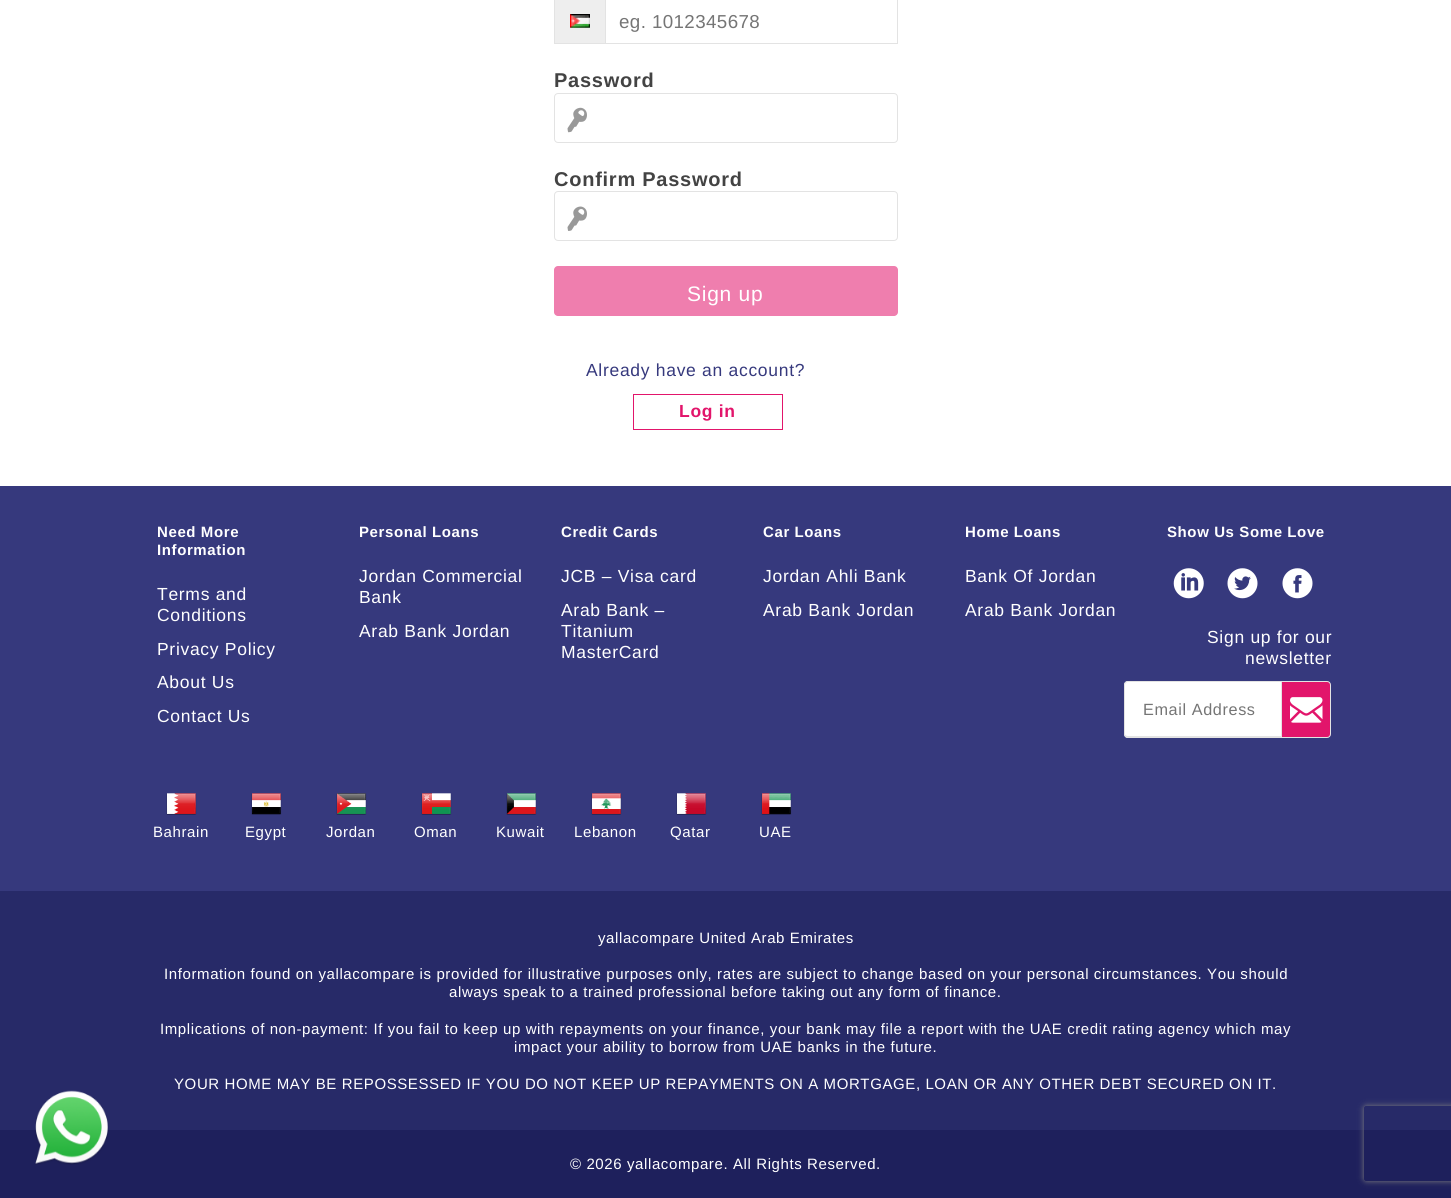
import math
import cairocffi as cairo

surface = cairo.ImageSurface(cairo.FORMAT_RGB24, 1451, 1198)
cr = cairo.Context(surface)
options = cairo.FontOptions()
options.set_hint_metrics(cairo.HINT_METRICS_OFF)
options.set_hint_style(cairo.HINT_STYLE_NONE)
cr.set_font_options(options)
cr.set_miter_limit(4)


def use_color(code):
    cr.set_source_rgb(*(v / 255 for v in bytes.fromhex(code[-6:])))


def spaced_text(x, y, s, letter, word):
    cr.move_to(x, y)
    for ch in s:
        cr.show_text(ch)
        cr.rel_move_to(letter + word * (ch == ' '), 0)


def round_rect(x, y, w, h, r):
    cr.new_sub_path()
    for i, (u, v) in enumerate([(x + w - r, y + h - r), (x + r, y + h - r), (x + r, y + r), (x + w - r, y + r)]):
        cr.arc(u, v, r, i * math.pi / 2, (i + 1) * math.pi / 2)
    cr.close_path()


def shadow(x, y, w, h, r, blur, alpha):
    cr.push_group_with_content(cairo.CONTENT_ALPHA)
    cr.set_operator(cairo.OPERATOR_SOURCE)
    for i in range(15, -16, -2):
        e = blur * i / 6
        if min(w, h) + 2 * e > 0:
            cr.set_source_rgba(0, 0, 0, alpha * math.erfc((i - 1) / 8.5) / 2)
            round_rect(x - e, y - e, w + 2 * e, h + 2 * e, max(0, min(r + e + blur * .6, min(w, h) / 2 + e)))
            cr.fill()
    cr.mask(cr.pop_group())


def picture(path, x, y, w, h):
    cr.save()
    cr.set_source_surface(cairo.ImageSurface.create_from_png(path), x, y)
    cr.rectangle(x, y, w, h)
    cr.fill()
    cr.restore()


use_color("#ffffff")
cr.paint()
use_color("#eeeeee")
cr.rectangle(555, 0, 50, 43)
cr.fill()
use_color("#e3e3e3")
cr.rectangle(554, 43, 51, 1)
cr.fill()
cr.rectangle(554, 0, 1, 44)
cr.fill()
picture("img1.png", 570, 14, 20, 14)
cr.rectangle(605.5, -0.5, 292, 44)
cr.set_line_width(1)
cr.stroke()
cr.select_font_face("Liberation Sans")
cr.set_font_size(18.75)
use_color("#757575")
spaced_text(619, 28, "eg. 1012345678", 0.4, 0)
cr.select_font_face("Liberation Sans", cairo.FONT_SLANT_NORMAL, cairo.FONT_WEIGHT_BOLD)
cr.set_font_size(20)
use_color("#434343")
spaced_text(554, 87, "Password", 0.75, 0)
round_rect(554.5, 93.5, 343, 49, 3.5)
use_color("#e3e3e3")
cr.stroke()
picture("img2.png", 567, 107, 20, 26)
use_color("#434343")
spaced_text(554, 186, "Confirm Password", 0.75, 0)
round_rect(554.5, 191.5, 343, 49, 3.5)
use_color("#e3e3e3")
cr.stroke()
picture("img3.png", 567, 206, 20, 25)
use_color("#ef7eae")
round_rect(554, 266, 344, 50, 4)
cr.fill()
cr.select_font_face("Liberation Sans")
cr.set_font_size(21)
use_color("#ffffff")
spaced_text(687, 301, "Sign up", 0.75, 0)
cr.set_font_size(17.5)
use_color("#36397d")
spaced_text(586, 376, "Already have an account?", 0.7, 0)
cr.rectangle(633.5, 394.5, 149, 35)
use_color("#e2156b")
cr.stroke()
cr.select_font_face("Liberation Sans", cairo.FONT_SLANT_NORMAL, cairo.FONT_WEIGHT_BOLD)
spaced_text(679, 417, "Log in", 0.7, 0)
use_color("#36397d")
cr.rectangle(0, 486, 1451, 405)
cr.fill()
cr.set_font_size(15)
use_color("#ffffff")
spaced_text(157, 537, "Need More", 0.6, 0)
spaced_text(157, 555, "Information", 0.6, 0)
cr.select_font_face("Liberation Sans")
cr.set_font_size(17.5)
spaced_text(157, 600, "Terms and", 0.7, 0)
spaced_text(157, 621, "Conditions", 0.7, 0)
spaced_text(157, 655, "Privacy Policy", 0.7, 0)
spaced_text(157, 688, "About Us", 0.7, 0)
spaced_text(157, 722, "Contact Us", 0.7, 0)
cr.select_font_face("Liberation Sans", cairo.FONT_SLANT_NORMAL, cairo.FONT_WEIGHT_BOLD)
cr.set_font_size(15)
spaced_text(359, 537, "Personal Loans", 0.6, 0)
cr.select_font_face("Liberation Sans")
cr.set_font_size(17.5)
spaced_text(359, 582, "Jordan Commercial", 0.7, 0)
spaced_text(359, 603, "Bank", 0.7, 0)
spaced_text(359, 637, "Arab Bank Jordan", 0.7, 0)
cr.select_font_face("Liberation Sans", cairo.FONT_SLANT_NORMAL, cairo.FONT_WEIGHT_BOLD)
cr.set_font_size(15)
spaced_text(561, 537, "Credit Cards", 0.6, 0)
cr.select_font_face("Liberation Sans")
cr.set_font_size(17.5)
spaced_text(561, 582, "JCB – Visa card", 0.7, 0)
spaced_text(561, 616, "Arab Bank –", 0.7, 0)
spaced_text(561, 637, "Titanium", 0.7, 0)
spaced_text(561, 658, "MasterCard", 0.7, 0)
cr.select_font_face("Liberation Sans", cairo.FONT_SLANT_NORMAL, cairo.FONT_WEIGHT_BOLD)
cr.set_font_size(15)
spaced_text(763, 537, "Car Loans", 0.6, 0)
cr.select_font_face("Liberation Sans")
cr.set_font_size(17.5)
spaced_text(763, 582, "Jordan Ahli Bank", 0.7, 0)
spaced_text(763, 616, "Arab Bank Jordan", 0.7, 0)
cr.select_font_face("Liberation Sans", cairo.FONT_SLANT_NORMAL, cairo.FONT_WEIGHT_BOLD)
cr.set_font_size(15)
spaced_text(965, 537, "Home Loans", 0.6, 0)
cr.select_font_face("Liberation Sans")
cr.set_font_size(17.5)
spaced_text(965, 582, "Bank Of Jordan", 0.7, 0)
spaced_text(965, 616, "Arab Bank Jordan", 0.7, 0)
cr.select_font_face("Liberation Sans", cairo.FONT_SLANT_NORMAL, cairo.FONT_WEIGHT_BOLD)
cr.set_font_size(15)
spaced_text(1167, 537, "Show Us Some Love", 0.6, 0)
picture("img4.png", 1173, 568, 31, 31)
picture("img5.png", 1227, 568, 31, 31)
picture("img6.png", 1282, 568, 31, 31)
cr.select_font_face("Liberation Sans")
cr.set_font_size(17.5)
spaced_text(1207, 643, "Sign up for our", 0.7, 0)
spaced_text(1245, 664, "newsletter", 0.7, 0)
cr.new_path()
cr.move_to(1128, 681)
cr.line_to(1281, 681)
cr.line_to(1281, 738)
cr.line_to(1128, 738)
cr.curve_to(1126, 738, 1124, 736, 1124, 734)
cr.line_to(1124, 685)
cr.curve_to(1124, 683, 1126, 681, 1128, 681)
cr.close_path()
cr.fill()
use_color("#e3e3e3")
cr.set_fill_rule(cairo.FILL_RULE_EVEN_ODD)
cr.new_path()
cr.move_to(1128, 681)
cr.line_to(1281, 681)
cr.line_to(1281, 738)
cr.line_to(1128, 738)
cr.curve_to(1125, 738, 1124, 736, 1124, 734)
cr.line_to(1124, 685)
cr.curve_to(1124, 683, 1125, 681, 1128, 681)
cr.close_path()
cr.move_to(1128, 682)
cr.line_to(1281, 682)
cr.line_to(1281, 736)
cr.line_to(1128, 736)
cr.curve_to(1126, 736, 1125, 735, 1125, 734)
cr.line_to(1125, 685)
cr.curve_to(1125, 684, 1126, 682, 1128, 682)
cr.close_path()
cr.fill()
cr.set_font_size(16.25)
use_color("#757575")
spaced_text(1143, 715, "Email Address", 0.6, 0)
use_color("#e2156b")
cr.new_path()
cr.move_to(1281.5, 681.5)
cr.line_to(1327, 681.5)
cr.curve_to(1329, 681.5, 1330.5, 683, 1330.5, 685)
cr.line_to(1330.5, 734)
cr.curve_to(1330.5, 736, 1329, 737.5, 1327, 737.5)
cr.line_to(1281.5, 737.5)
cr.close_path()
cr.fill_preserve()
use_color("#e3e3e3")
cr.stroke()
picture("img7.png", 1290, 697, 33, 26)
picture("img8.png", 166, 793, 31, 22)
cr.set_font_size(15)
use_color("#ffffff")
spaced_text(153, 837, "Bahrain", 0.6, 0)
picture("img9.png", 251, 793, 31, 22)
spaced_text(245, 837, "Egypt", 0.6, 0)
picture("img10.png", 336, 793, 31, 22)
spaced_text(326, 837, "Jordan", 0.6, 0)
picture("img11.png", 421, 793, 31, 22)
spaced_text(414, 837, "Oman", 0.6, 0)
picture("img12.png", 506, 793, 31, 22)
spaced_text(496, 837, "Kuwait", 0.6, 0)
picture("img13.png", 591, 793, 31, 22)
spaced_text(574, 837, "Lebanon", 0.6, 0)
picture("img14.png", 676, 793, 31, 22)
spaced_text(670, 837, "Qatar", 0.6, 0)
picture("img15.png", 761, 793, 31, 22)
spaced_text(759, 837, "UAE", 0.6, 0)
use_color("#272a68")
cr.rectangle(0, 891, 1451, 239)
cr.fill()
use_color("#ffffff")
spaced_text(598, 943, "yallacompare United Arab Emirates", 0.6, 0)
spaced_text(164, 979, "Information found on yallacompare is provided for illustrative purposes only, rates are subject to change based on your personal circumstances. You should", 0.6, 0)
spaced_text(449, 997, "always speak to a trained professional before taking out any form of finance.", 0.6, 0)
spaced_text(160, 1034, "Implications of non-payment: If you fail to keep up with repayments on your finance, your bank may file a report with the UAE credit rating agency which may", 0.6, 0)
spaced_text(514, 1052, "impact your ability to borrow from UAE banks in the future.", 0.6, 0)
spaced_text(174, 1089, "YOUR HOME MAY BE REPOSSESSED IF YOU DO NOT KEEP UP REPAYMENTS ON A MORTGAGE, LOAN OR ANY OTHER DEBT SECURED ON IT.", 0.6, 0)
use_color("#1e205c")
cr.rectangle(0, 1130, 1451, 68)
cr.fill()
picture("img16.png", 35, 1090, 74, 75)
use_color("#ffffff")
spaced_text(570, 1169, "© 2026 yallacompare. All Rights Reserved.", 0.6, 0)
cr.save()
cr.new_path()
cr.move_to(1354, 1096)
cr.line_to(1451, 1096)
cr.line_to(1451, 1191)
cr.line_to(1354, 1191)
cr.close_path()
cr.move_to(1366.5, 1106)
cr.line_to(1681.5, 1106)
cr.curve_to(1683, 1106, 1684, 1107, 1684, 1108.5)
cr.line_to(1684, 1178.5)
cr.curve_to(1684, 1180, 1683, 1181, 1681.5, 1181)
cr.line_to(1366.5, 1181)
cr.curve_to(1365, 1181, 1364, 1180, 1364, 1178.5)
cr.line_to(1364, 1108.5)
cr.curve_to(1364, 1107, 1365, 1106, 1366.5, 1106)
cr.close_path()
cr.clip()
use_color("#808080")
shadow(1364, 1106, 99, 75, 2.5, 3, 1)
cr.restore()
surface.write_to_png("result.png")
